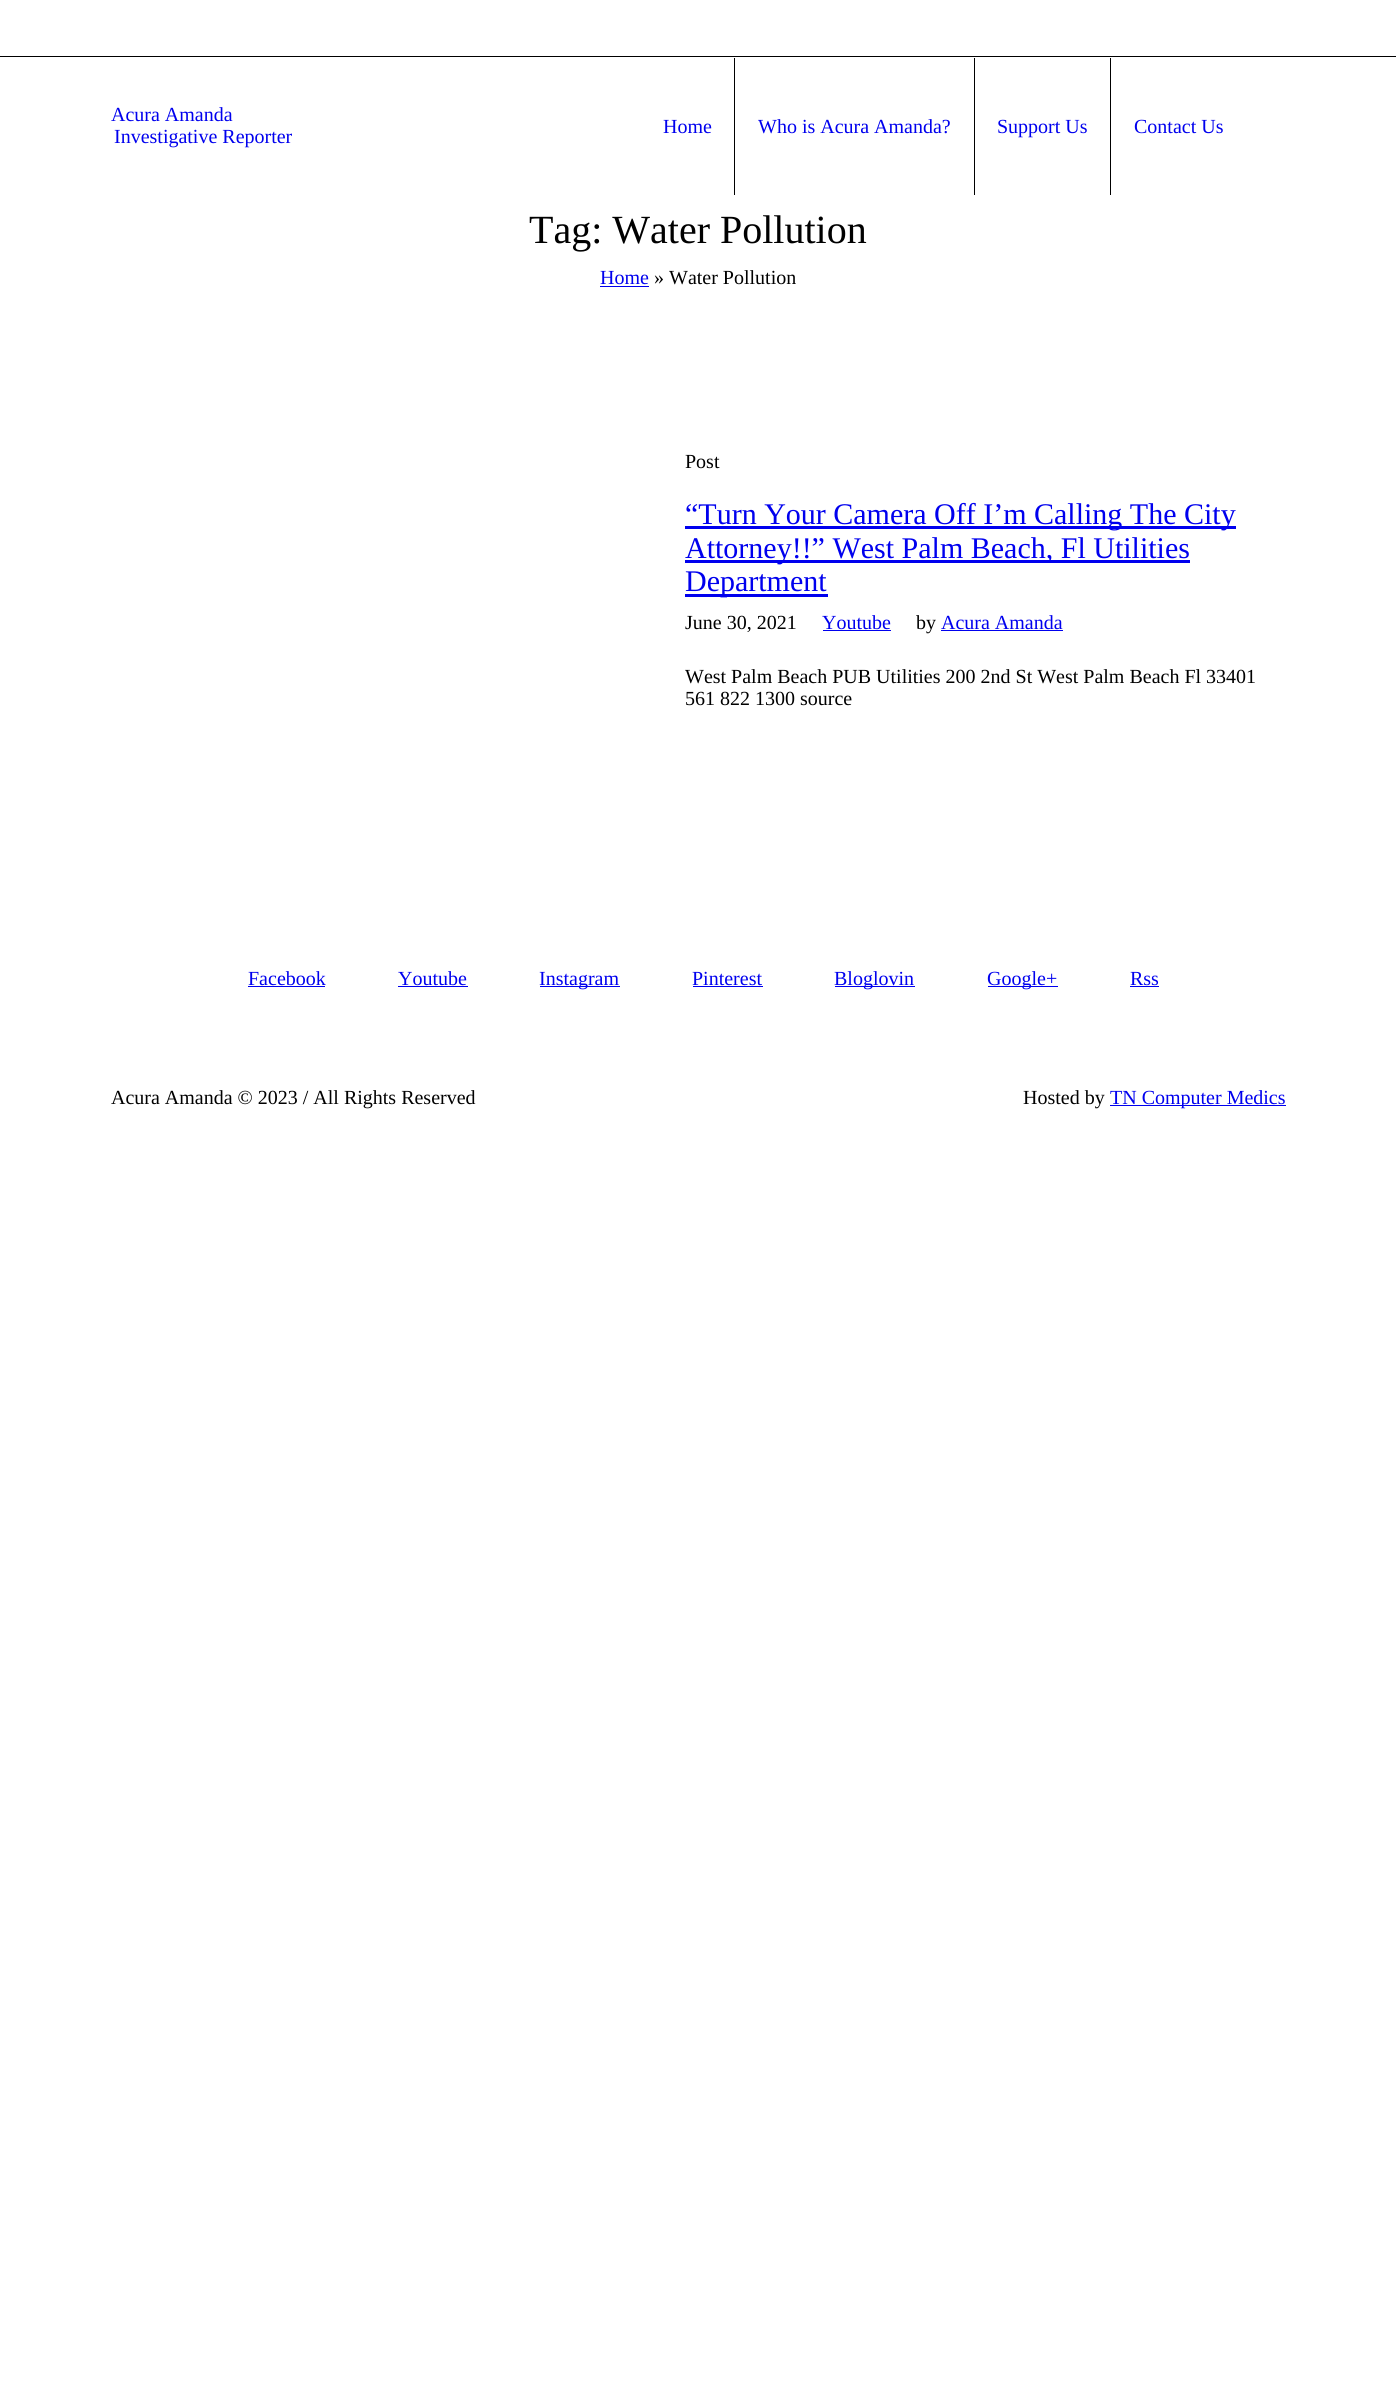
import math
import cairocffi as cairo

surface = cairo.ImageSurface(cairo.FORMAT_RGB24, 1396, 2400)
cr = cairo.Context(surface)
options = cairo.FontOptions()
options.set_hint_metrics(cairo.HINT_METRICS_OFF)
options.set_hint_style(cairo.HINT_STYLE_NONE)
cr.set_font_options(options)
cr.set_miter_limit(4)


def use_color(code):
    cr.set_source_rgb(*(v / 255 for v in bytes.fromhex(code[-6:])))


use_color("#ffffff")
cr.paint()
use_color("#000000")
cr.rectangle(0, 56, 1396, 1)
cr.fill()
cr.select_font_face("Liberation Serif")
cr.set_font_size(20)
use_color("#0000ee")
cr.move_to(111, 121)
cr.show_text("Acura Amanda")
cr.move_to(114, 143)
cr.show_text("Investigative Reporter")
use_color("#000000")
cr.rectangle(734, 58, 1, 137)
cr.fill()
use_color("#0000ee")
cr.move_to(663, 133)
cr.show_text("Home")
use_color("#000000")
cr.rectangle(974, 58, 1, 137)
cr.fill()
use_color("#0000ee")
cr.move_to(758, 133)
cr.show_text("Who is Acura Amanda?")
use_color("#000000")
cr.rectangle(1110, 58, 1, 137)
cr.fill()
use_color("#0000ee")
cr.move_to(997, 133)
cr.show_text("Support Us")
cr.move_to(1134, 133)
cr.show_text("Contact Us")
cr.set_font_size(40)
use_color("#000000")
cr.move_to(529, 243)
cr.show_text("Tag: Water Pollution")
cr.set_font_size(20)
use_color("#0000ee")
cr.move_to(600, 284)
cr.show_text("Home")
cr.rectangle(600, 286, 49, 1)
cr.fill()
use_color("#000000")
cr.move_to(654, 284)
cr.show_text("» Water Pollution")
cr.move_to(685, 468)
cr.show_text("Post")
use_color("#0000ee")
cr.rectangle(685, 526, 551, 3)
cr.fill()
cr.set_font_size(30)
cr.move_to(685, 524)
cr.show_text("“Turn Your Camera Off I’m Calling The City")
cr.rectangle(685, 560, 505, 3)
cr.fill()
cr.move_to(685, 558)
cr.show_text("Attorney!!” West Palm Beach, Fl Utilities")
cr.rectangle(685, 594, 143, 3)
cr.fill()
cr.move_to(685, 591)
cr.show_text("Department")
cr.set_font_size(20)
use_color("#000000")
cr.move_to(685, 629)
cr.show_text("June 30, 2021")
use_color("#0000ee")
cr.move_to(822, 629)
cr.show_text("Youtube")
cr.rectangle(823, 630, 68, 1)
cr.fill()
use_color("#000000")
cr.move_to(916, 629)
cr.show_text("by")
use_color("#0000ee")
cr.move_to(941, 629)
cr.show_text("Acura Amanda")
cr.rectangle(941, 630, 122, 1)
cr.fill()
use_color("#000000")
cr.move_to(685, 683)
cr.show_text("West Palm Beach PUB Utilities 200 2nd St West Palm Beach Fl 33401")
cr.move_to(685, 705)
cr.show_text("561 822 1300 source")
use_color("#0000ee")
cr.move_to(248, 985)
cr.show_text("Facebook")
cr.rectangle(248, 986, 77, 1)
cr.fill()
cr.move_to(398, 985)
cr.show_text("Youtube")
cr.rectangle(398, 986, 70, 1)
cr.fill()
cr.rectangle(540, 986, 80, 1)
cr.fill()
cr.move_to(539, 985)
cr.show_text("Instagram")
cr.move_to(692, 985)
cr.show_text("Pinterest")
cr.rectangle(693, 986, 70, 1)
cr.fill()
cr.rectangle(835, 986, 80, 1)
cr.fill()
cr.move_to(834, 985)
cr.show_text("Bloglovin")
cr.rectangle(988, 986, 70, 1)
cr.fill()
cr.move_to(987, 985)
cr.show_text("Google+")
cr.move_to(1130, 985)
cr.show_text("Rss")
cr.rectangle(1130, 986, 29, 1)
cr.fill()
use_color("#000000")
cr.move_to(111, 1104)
cr.show_text("Acura Amanda © 2023 / All Rights Reserved")
cr.move_to(1023, 1104)
cr.show_text("Hosted by")
use_color("#0000ee")
cr.rectangle(1110, 1105, 176, 1)
cr.fill()
cr.move_to(1110, 1104)
cr.show_text("TN Computer Medics")
surface.write_to_png("result.png")
